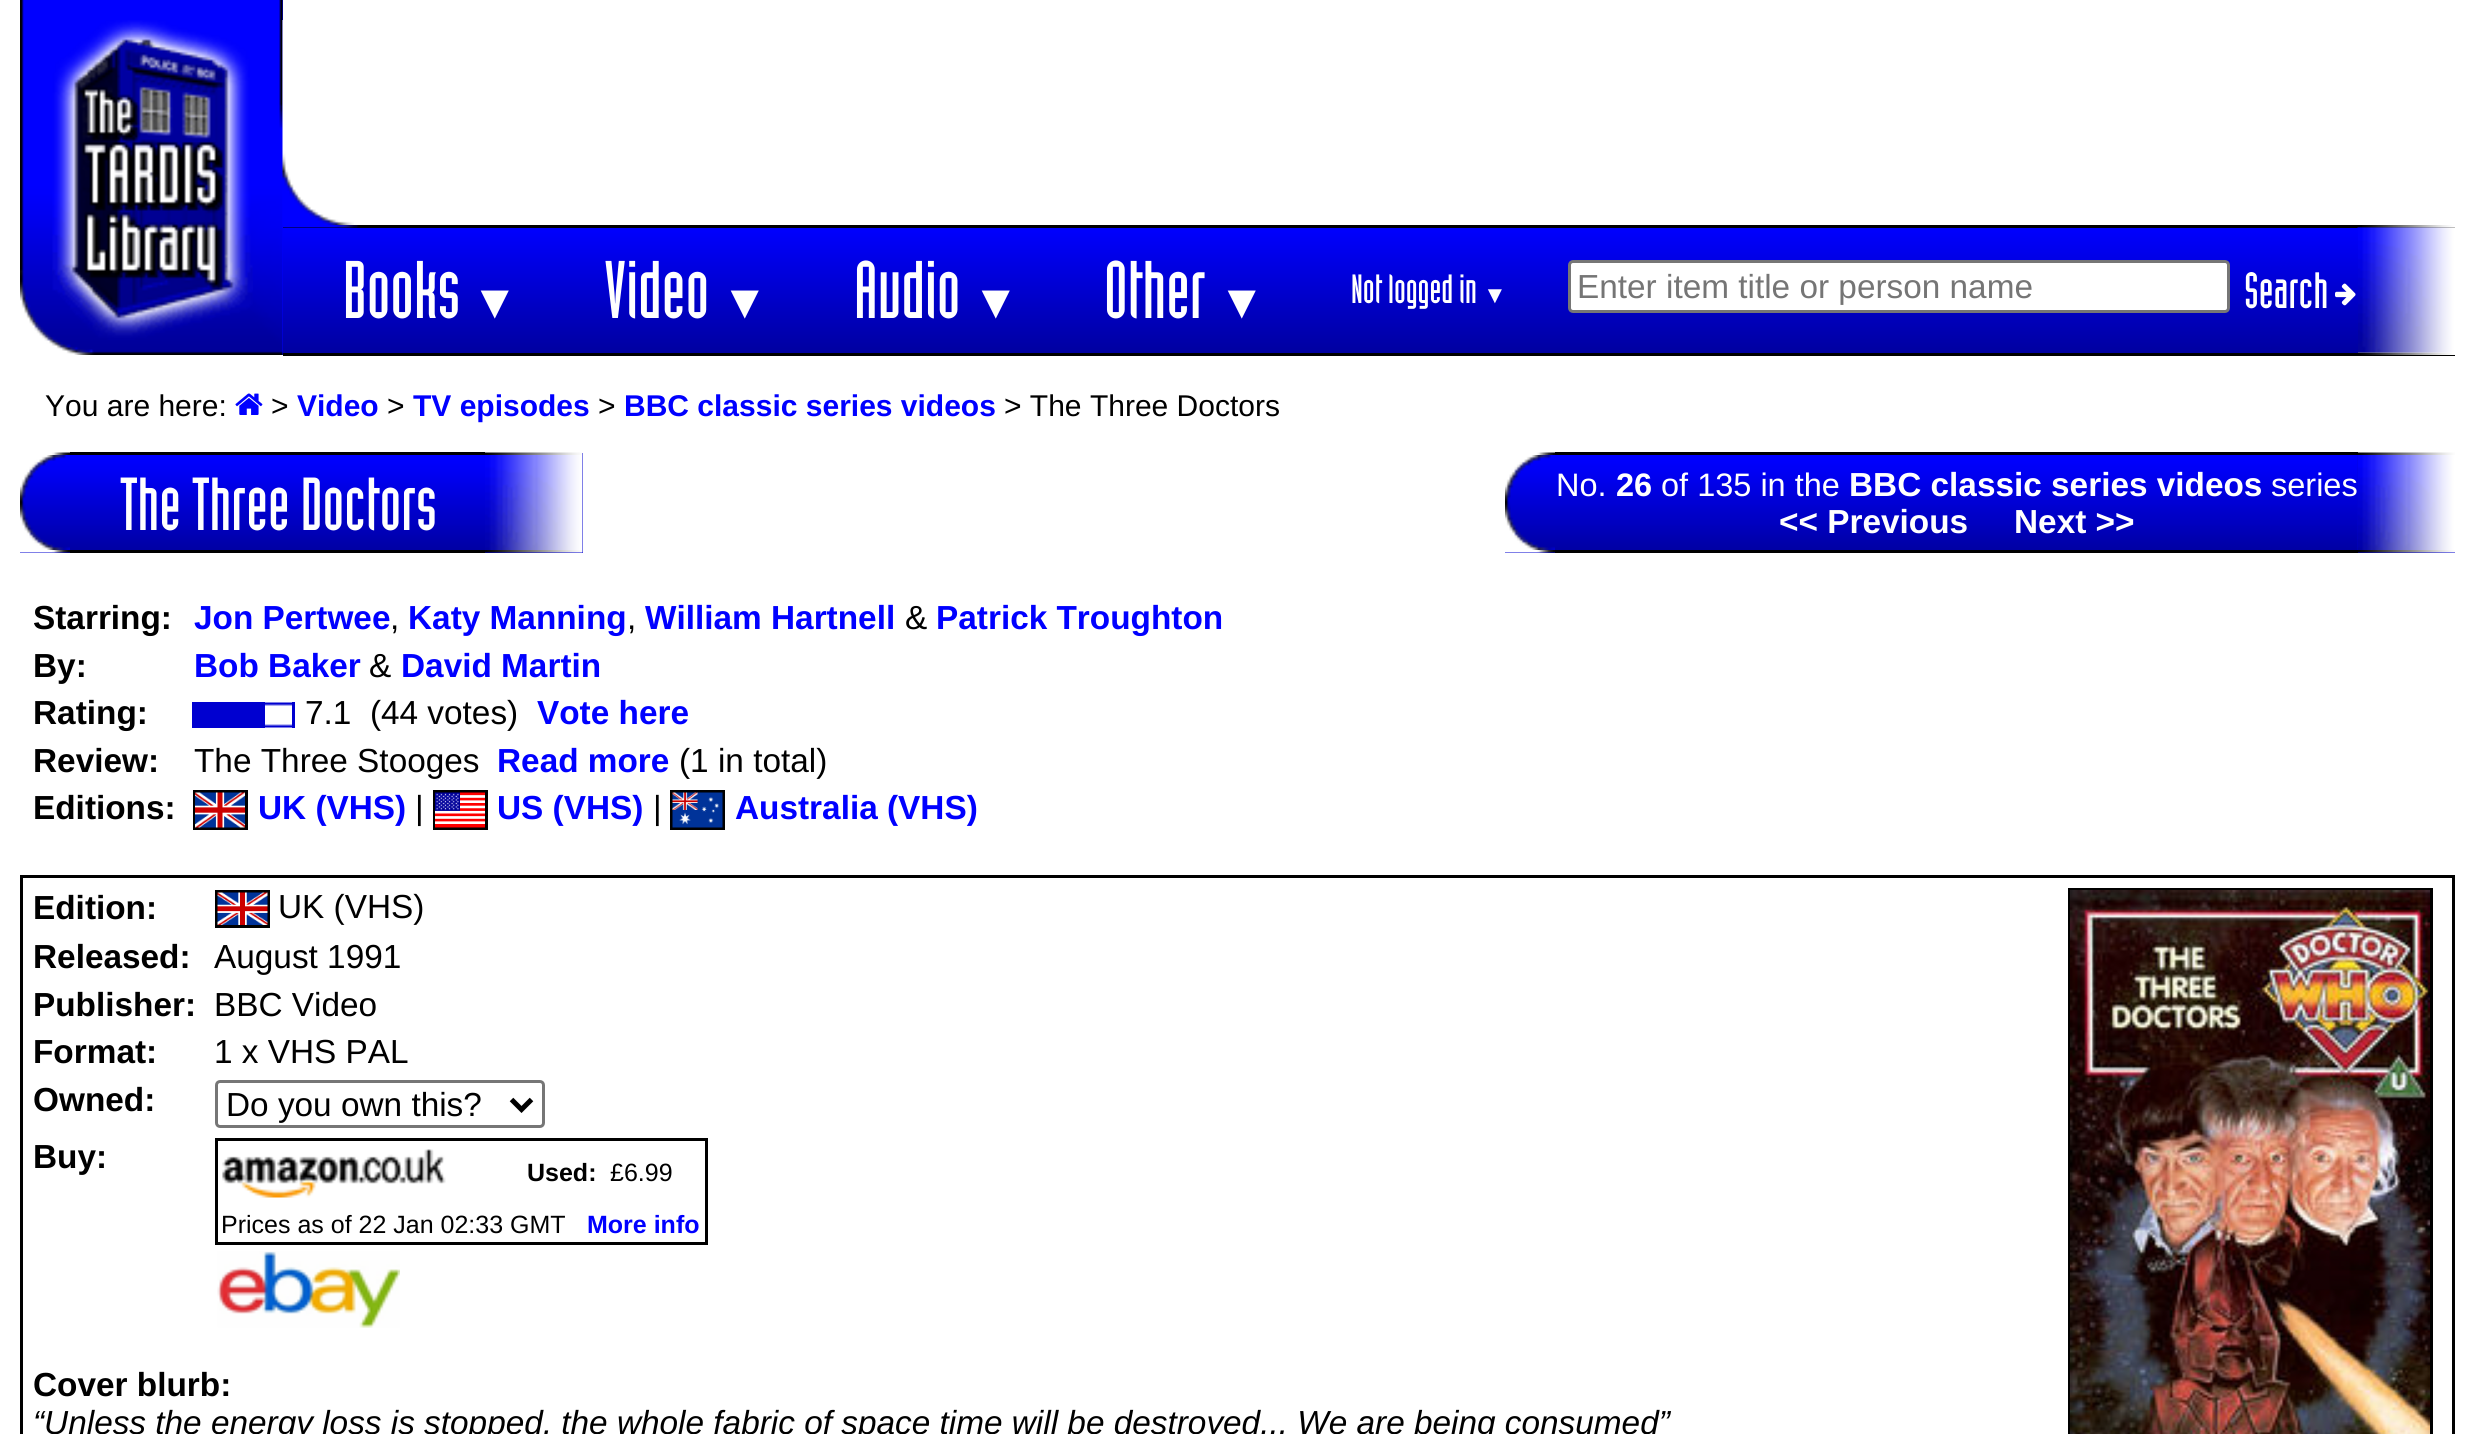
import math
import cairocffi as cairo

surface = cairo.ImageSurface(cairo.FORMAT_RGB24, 2473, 1434)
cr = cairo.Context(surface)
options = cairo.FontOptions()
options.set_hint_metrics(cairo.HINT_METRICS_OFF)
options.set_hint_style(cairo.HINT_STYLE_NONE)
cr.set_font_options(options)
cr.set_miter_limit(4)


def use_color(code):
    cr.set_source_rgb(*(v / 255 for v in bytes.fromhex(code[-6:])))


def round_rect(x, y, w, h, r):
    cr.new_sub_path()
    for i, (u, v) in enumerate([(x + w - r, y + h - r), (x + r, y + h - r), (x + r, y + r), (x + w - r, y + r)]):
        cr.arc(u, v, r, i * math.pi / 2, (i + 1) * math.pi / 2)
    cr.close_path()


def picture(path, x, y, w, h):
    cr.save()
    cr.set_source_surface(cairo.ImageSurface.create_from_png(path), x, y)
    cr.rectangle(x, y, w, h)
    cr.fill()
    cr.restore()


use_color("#ffffff")
cr.paint()
use_color("#0000ff")
cr.rectangle(282, 0, 1, 355)
cr.fill()
picture("img1.png", 20, 0, 263, 355)
picture("img2.png", 52, 20, 201, 320)
picture("img3.png", 282, 20, 72, 205)
use_color("#000000")
cr.rectangle(283, 225, 2172, 3)
cr.fill()
picture("img4.png", 2362, 225, 93, 3)
picture("img5.png", 283, 225, 76, 3)
cr.rectangle(283, 353, 2172, 3)
cr.fill()
picture("img8.png", 2357, 352, 98, 3)
picture("img7.png", 2357, 227, 98, 126)
gradient = cairo.LinearGradient(1320, 227, 1320, 353)
gradient.add_color_stop_rgba(0, 0, 0, 1, 1)
gradient.add_color_stop_rgba(1, 0, 0, 0.627, 1)
cr.set_source(gradient)
cr.rectangle(283, 228, 2075, 125)
cr.fill()
cr.select_font_face("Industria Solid")
cr.set_font_size(80)
use_color("#ffffff")
cr.move_to(343, 318)
cr.show_text("Books")
cr.select_font_face("Liberation Sans")
cr.set_font_size(48)
cr.move_to(471, 318)
cr.show_text("▼")
cr.select_font_face("Industria Solid")
cr.set_font_size(80)
cr.move_to(604, 318)
cr.show_text("Video")
cr.select_font_face("Liberation Sans")
cr.set_font_size(48)
cr.move_to(721, 318)
cr.show_text("▼")
cr.select_font_face("Industria Solid")
cr.set_font_size(80)
cr.move_to(854, 318)
cr.show_text("Audio")
cr.select_font_face("Liberation Sans")
cr.set_font_size(48)
cr.move_to(972, 318)
cr.show_text("▼")
cr.select_font_face("Industria Solid")
cr.set_font_size(80)
cr.move_to(1104, 318)
cr.show_text("Other")
cr.select_font_face("Liberation Sans")
cr.set_font_size(48)
cr.move_to(1218, 318)
cr.show_text("▼")
cr.select_font_face("Industria Solid")
cr.set_font_size(40)
cr.move_to(1351, 303)
cr.show_text("Not logged in")
cr.select_font_face("Liberation Sans")
cr.set_font_size(24)
cr.move_to(1483, 303)
cr.show_text("▼")
round_rect(1569.5, 261.5, 659, 50, 3.5)
cr.fill_preserve()
use_color("#767676")
cr.set_line_width(3)
cr.stroke()
cr.set_font_size(33.35)
use_color("#757575")
cr.move_to(1577, 298)
cr.show_text("Enter item title or person name")
cr.select_font_face("Industria Solid")
cr.set_font_size(50)
use_color("#ffffff")
cr.move_to(2244, 308)
cr.show_text("Search")
picture("img6.png", 2335, 283, 21, 23)
cr.select_font_face("Liberation Sans")
cr.set_font_size(30)
use_color("#000000")
cr.move_to(45, 416)
cr.show_text("You are here:")
picture("img9.png", 235, 393, 28, 22)
cr.move_to(271, 416)
cr.show_text(">")
cr.select_font_face("Liberation Sans", cairo.FONT_SLANT_NORMAL, cairo.FONT_WEIGHT_BOLD)
use_color("#0000ff")
cr.move_to(297, 416)
cr.show_text("Video")
cr.select_font_face("Liberation Sans")
use_color("#000000")
cr.move_to(387, 416)
cr.show_text(">")
cr.select_font_face("Liberation Sans", cairo.FONT_SLANT_NORMAL, cairo.FONT_WEIGHT_BOLD)
use_color("#0000ff")
cr.move_to(413, 416)
cr.show_text("TV episodes")
cr.select_font_face("Liberation Sans")
use_color("#000000")
cr.move_to(598, 416)
cr.show_text(">")
cr.select_font_face("Liberation Sans", cairo.FONT_SLANT_NORMAL, cairo.FONT_WEIGHT_BOLD)
use_color("#0000ff")
cr.move_to(624, 416)
cr.show_text("BBC classic series videos")
cr.select_font_face("Liberation Sans")
use_color("#000000")
cr.move_to(1004, 416)
cr.show_text("> The Three Doctors")
use_color("#0000d0")
cr.rectangle(20, 453, 563, 100)
cr.fill()
picture("img10.png", 20, 452, 50, 3)
use_color("#000000")
cr.rectangle(70, 452, 415, 3)
cr.fill()
picture("img11.png", 485, 452, 98, 3)
picture("img12.png", 20, 455, 50, 94)
picture("img13.png", 20, 502, 50, 48)
picture("img14.png", 70, 455, 415, 95)
cr.select_font_face("Industria Solid")
cr.set_font_size(73.5)
use_color("#ffffff")
cr.move_to(120, 530)
cr.show_text("The Three Doctors")
picture("img15.png", 485, 455, 98, 95)
picture("img16.png", 20, 550, 50, 3)
use_color("#000000")
cr.rectangle(70, 550, 415, 3)
cr.fill()
picture("img17.png", 485, 550, 98, 3)
use_color("#0000d0")
cr.rectangle(1505, 455, 950, 98)
cr.fill()
picture("img18.png", 1505, 452, 50, 3)
use_color("#000000")
cr.rectangle(1555, 452, 803, 3)
cr.fill()
picture("img19.png", 2358, 452, 97, 3)
picture("img20.png", 1505, 455, 50, 94)
picture("img21.png", 1505, 502, 50, 48)
picture("img22.png", 1555, 455, 803, 95)
cr.select_font_face("Liberation Sans")
cr.set_font_size(32.5)
use_color("#ffffff")
cr.move_to(1556, 496)
cr.show_text("No.")
cr.select_font_face("Liberation Sans", cairo.FONT_SLANT_NORMAL, cairo.FONT_WEIGHT_BOLD)
cr.move_to(1616, 496)
cr.show_text("26")
cr.select_font_face("Liberation Sans")
cr.move_to(1661, 496)
cr.show_text("of 135 in the")
cr.select_font_face("Liberation Sans", cairo.FONT_SLANT_NORMAL, cairo.FONT_WEIGHT_BOLD)
cr.set_font_size(33.35)
cr.move_to(1849, 496)
cr.show_text("BBC classic series videos")
cr.select_font_face("Liberation Sans")
cr.set_font_size(32.5)
cr.move_to(2271, 496)
cr.show_text("series")
cr.select_font_face("Liberation Sans", cairo.FONT_SLANT_NORMAL, cairo.FONT_WEIGHT_BOLD)
cr.set_font_size(33.35)
cr.move_to(1779, 533)
cr.show_text("<< Previous")
cr.move_to(2014, 533)
cr.show_text("Next >>")
picture("img23.png", 2357, 455, 98, 95)
picture("img24.png", 1505, 550, 50, 3)
use_color("#000000")
cr.rectangle(1555, 550, 803, 3)
cr.fill()
picture("img25.png", 2358, 550, 97, 3)
cr.move_to(33, 629)
cr.show_text("Starring:")
use_color("#0000ff")
cr.move_to(194, 629)
cr.show_text("Jon Pertwee")
cr.select_font_face("Liberation Sans")
use_color("#000000")
cr.move_to(390, 629)
cr.show_text(",")
cr.select_font_face("Liberation Sans", cairo.FONT_SLANT_NORMAL, cairo.FONT_WEIGHT_BOLD)
use_color("#0000ff")
cr.move_to(408, 629)
cr.show_text("Katy Manning")
cr.select_font_face("Liberation Sans")
use_color("#000000")
cr.move_to(627, 629)
cr.show_text(",")
cr.select_font_face("Liberation Sans", cairo.FONT_SLANT_NORMAL, cairo.FONT_WEIGHT_BOLD)
use_color("#0000ff")
cr.move_to(645, 629)
cr.show_text("William Hartnell")
cr.select_font_face("Liberation Sans")
use_color("#000000")
cr.move_to(905, 629)
cr.show_text("&")
cr.select_font_face("Liberation Sans", cairo.FONT_SLANT_NORMAL, cairo.FONT_WEIGHT_BOLD)
use_color("#0000ff")
cr.move_to(936, 629)
cr.show_text("Patrick Troughton")
use_color("#000000")
cr.move_to(33, 677)
cr.show_text("By:")
use_color("#0000ff")
cr.move_to(194, 677)
cr.show_text("Bob Baker")
cr.select_font_face("Liberation Sans")
use_color("#000000")
cr.move_to(369, 677)
cr.show_text("&")
cr.select_font_face("Liberation Sans", cairo.FONT_SLANT_NORMAL, cairo.FONT_WEIGHT_BOLD)
use_color("#0000ff")
cr.move_to(401, 677)
cr.show_text("David Martin")
use_color("#000000")
cr.move_to(33, 724)
cr.show_text("Rating:")
use_color("#0000d0")
cr.rectangle(192, 702, 73, 26)
cr.fill()
picture("img26.png", 265, 702, 27, 26)
cr.rectangle(292, 702, 3, 26)
cr.fill()
cr.select_font_face("Liberation Sans")
use_color("#000000")
cr.move_to(305, 724)
cr.show_text("7.1  (44 votes)")
cr.select_font_face("Liberation Sans", cairo.FONT_SLANT_NORMAL, cairo.FONT_WEIGHT_BOLD)
use_color("#0000ff")
cr.move_to(537, 724)
cr.show_text("Vote here")
use_color("#000000")
cr.move_to(33, 772)
cr.show_text("Review:")
cr.select_font_face("Liberation Sans")
cr.move_to(194, 772)
cr.show_text("The Three Stooges")
cr.select_font_face("Liberation Sans", cairo.FONT_SLANT_NORMAL, cairo.FONT_WEIGHT_BOLD)
use_color("#0000ff")
cr.move_to(497, 772)
cr.show_text("Read more")
cr.select_font_face("Liberation Sans")
use_color("#000000")
cr.move_to(679, 772)
cr.show_text("(1 in total)")
cr.select_font_face("Liberation Sans", cairo.FONT_SLANT_NORMAL, cairo.FONT_WEIGHT_BOLD)
cr.move_to(33, 819)
cr.show_text("Editions:")
cr.rectangle(194.5, 791.5, 52, 37)
cr.stroke()
picture("img27.png", 195, 792, 50, 36)
use_color("#0000ff")
cr.move_to(258, 819)
cr.show_text("UK (VHS)")
cr.select_font_face("Liberation Sans")
use_color("#000000")
cr.move_to(415, 819)
cr.show_text("|")
cr.rectangle(434.5, 791.5, 52, 37)
cr.stroke()
picture("img28.png", 435, 792, 50, 36)
cr.select_font_face("Liberation Sans", cairo.FONT_SLANT_NORMAL, cairo.FONT_WEIGHT_BOLD)
use_color("#0000ff")
cr.move_to(497, 819)
cr.show_text("US (VHS)")
cr.select_font_face("Liberation Sans")
use_color("#000000")
cr.move_to(653, 819)
cr.show_text("|")
cr.rectangle(671.5, 791.5, 52, 37)
cr.stroke()
picture("img29.png", 672, 792, 51, 36)
cr.select_font_face("Liberation Sans", cairo.FONT_SLANT_NORMAL, cairo.FONT_WEIGHT_BOLD)
use_color("#0000ff")
cr.move_to(735, 819)
cr.show_text("Australia (VHS)")
cr.rectangle(21.5, 876.5, 2432, 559)
use_color("#000000")
cr.stroke()
cr.move_to(33, 919)
cr.show_text("Edition:")
cr.rectangle(216.5, 891.5, 52, 35)
cr.stroke()
picture("img30.png", 217, 892, 51, 33)
cr.select_font_face("Liberation Sans")
cr.move_to(278, 918)
cr.show_text("UK (VHS)")
cr.select_font_face("Liberation Sans", cairo.FONT_SLANT_NORMAL, cairo.FONT_WEIGHT_BOLD)
cr.move_to(33, 968)
cr.show_text("Released:")
cr.select_font_face("Liberation Sans")
cr.move_to(214, 968)
cr.show_text("August 1991")
cr.select_font_face("Liberation Sans", cairo.FONT_SLANT_NORMAL, cairo.FONT_WEIGHT_BOLD)
cr.move_to(33, 1016)
cr.show_text("Publisher:")
cr.select_font_face("Liberation Sans")
cr.move_to(214, 1016)
cr.show_text("BBC Video")
cr.select_font_face("Liberation Sans", cairo.FONT_SLANT_NORMAL, cairo.FONT_WEIGHT_BOLD)
cr.move_to(33, 1063)
cr.show_text("Format:")
cr.select_font_face("Liberation Sans")
cr.move_to(214, 1063)
cr.show_text("1 x VHS PAL")
cr.select_font_face("Liberation Sans", cairo.FONT_SLANT_NORMAL, cairo.FONT_WEIGHT_BOLD)
cr.move_to(33, 1111)
cr.show_text("Owned:")
round_rect(216.5, 1081.5, 327, 45, 3.5)
use_color("#767676")
cr.stroke()
cr.new_path()
cr.move_to(511.5, 1099.5)
cr.line_to(521.5, 1109.5)
cr.line_to(531.5, 1099.5)
use_color("#000000")
cr.set_line_width(5)
cr.stroke()
cr.select_font_face("Liberation Sans")
cr.move_to(226, 1116)
cr.show_text("Do you own this?")
cr.select_font_face("Liberation Sans", cairo.FONT_SLANT_NORMAL, cairo.FONT_WEIGHT_BOLD)
cr.move_to(33, 1168)
cr.show_text("Buy:")
cr.rectangle(216.5, 1139.5, 490, 104)
cr.set_line_width(3)
cr.stroke()
picture("img31.png", 222, 1149, 224, 49)
cr.set_font_size(25)
cr.move_to(527, 1181)
cr.show_text("Used:")
cr.select_font_face("Liberation Sans")
cr.move_to(610, 1181)
cr.show_text("£6.99")
cr.move_to(221, 1233)
cr.show_text("Prices as of 22 Jan 02:33 GMT")
cr.select_font_face("Liberation Sans", cairo.FONT_SLANT_NORMAL, cairo.FONT_WEIGHT_BOLD)
use_color("#0000ff")
cr.move_to(587, 1233)
cr.show_text("More info")
picture("img32.png", 217, 1251, 183, 77)
cr.rectangle(2069.5, 889.5, 362, 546)
use_color("#000000")
cr.stroke()
picture("img33.png", 2070, 890, 360, 544)
cr.set_font_size(33.35)
cr.move_to(33, 1396)
cr.show_text("Cover blurb:")
cr.select_font_face("Liberation Sans", cairo.FONT_SLANT_ITALIC)
cr.move_to(33, 1434)
cr.show_text("“Unless the energy loss is stopped, the whole fabric of space time will be destroyed... We are being consumed”")
surface.write_to_png("result.png")
